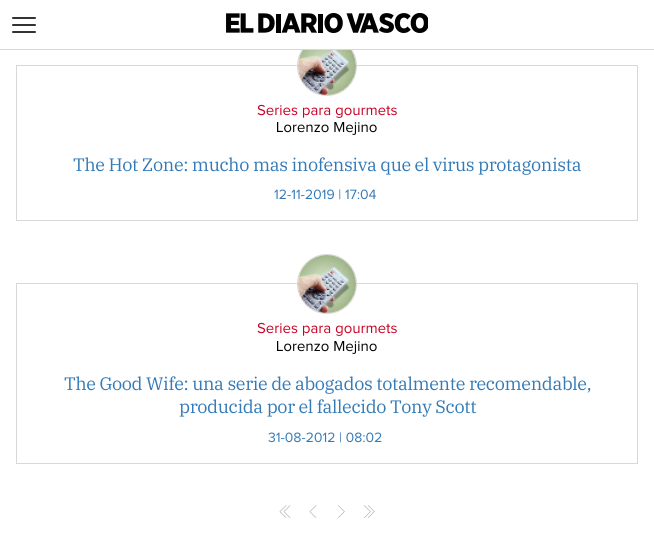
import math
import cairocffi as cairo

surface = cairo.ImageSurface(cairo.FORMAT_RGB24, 654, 554)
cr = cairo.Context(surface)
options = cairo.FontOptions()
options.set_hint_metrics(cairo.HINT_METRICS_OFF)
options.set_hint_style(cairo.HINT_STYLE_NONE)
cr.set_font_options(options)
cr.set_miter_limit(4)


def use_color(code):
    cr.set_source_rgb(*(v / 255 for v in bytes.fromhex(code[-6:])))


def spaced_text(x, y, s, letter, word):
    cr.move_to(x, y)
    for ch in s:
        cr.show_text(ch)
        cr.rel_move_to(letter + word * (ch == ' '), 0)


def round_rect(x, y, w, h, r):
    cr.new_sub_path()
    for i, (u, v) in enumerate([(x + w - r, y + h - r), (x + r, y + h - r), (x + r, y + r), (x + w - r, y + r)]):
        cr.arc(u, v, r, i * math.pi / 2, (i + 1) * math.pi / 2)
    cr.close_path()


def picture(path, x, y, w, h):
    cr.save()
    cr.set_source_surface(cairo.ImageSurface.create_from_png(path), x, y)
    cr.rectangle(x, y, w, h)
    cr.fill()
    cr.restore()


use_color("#ffffff")
cr.paint()
cr.rectangle(16.5, 65.5, 621, 155)
use_color("#d8d8d8")
cr.set_line_width(1)
cr.stroke()
cr.arc(327, 66, 29.5, 0, 2 * math.pi)
cr.stroke()
use_color("#ffffff")
cr.rectangle(302, 36, 50, 13)
cr.fill()
use_color("#d8d8d8")
cr.rectangle(0, 49, 654, 1)
cr.fill()
use_color("#333333")
round_rect(12, 17, 24, 2, 1)
cr.fill()
round_rect(12, 24, 24, 2, 1)
cr.fill()
round_rect(12, 31, 24, 2, 1)
cr.fill()
picture("img1.png", 226, 13, 202, 20)
picture("img2.png", 298, 50, 58, 45)
picture("img3.png", 257, 104, 140, 14)
picture("img4.png", 277, 122, 100, 13)
cr.select_font_face("IBM Plex Serif")
cr.set_font_size(18)
use_color("#337ab7")
spaced_text(73, 171, "The Hot Zone: mucho mas inofensiva que el virus protagonista", -0.35, 0)
picture("img5.png", 274, 189, 102, 11)
cr.rectangle(16.5, 283.5, 621, 180)
use_color("#d8d8d8")
cr.stroke()
cr.arc(327, 284, 29.5, 0, 2 * math.pi)
cr.stroke()
picture("img6.png", 298, 255, 58, 58)
picture("img3.png", 257, 322, 140, 14)
picture("img4.png", 277, 341, 100, 13)
use_color("#337ab7")
spaced_text(64, 390, "The Good Wife: una serie de abogados totalmente recomendable,", -0.35, 0)
spaced_text(179, 413, "producida por el fallecido Tony Scott", -0.35, 0)
picture("img7.png", 268, 432, 114, 11)
cr.select_font_face("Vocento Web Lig")
use_color("#9d9d9d")
cr.move_to(278, 518)
cr.show_text("←")
cr.move_to(282, 518)
cr.show_text("←")
cr.move_to(308, 518)
cr.show_text("←")
cr.move_to(336, 518)
cr.show_text("→")
cr.move_to(362, 518)
cr.show_text("→")
cr.move_to(366, 518)
cr.show_text("→")
surface.write_to_png("result.png")
